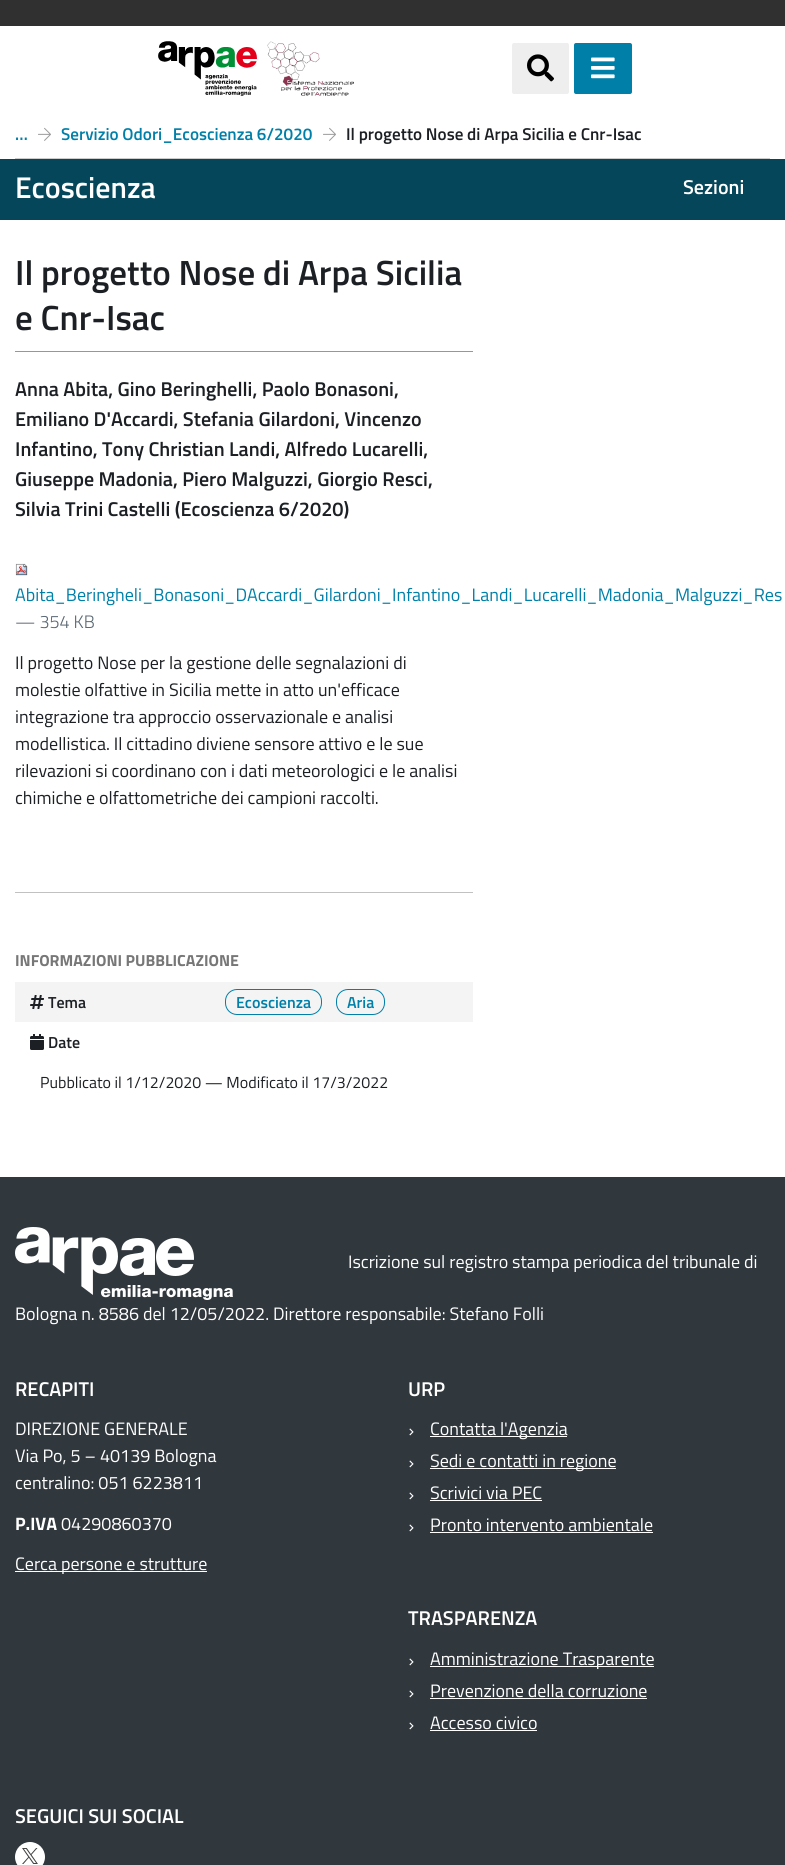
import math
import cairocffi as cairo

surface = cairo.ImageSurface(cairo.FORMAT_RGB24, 785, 1865)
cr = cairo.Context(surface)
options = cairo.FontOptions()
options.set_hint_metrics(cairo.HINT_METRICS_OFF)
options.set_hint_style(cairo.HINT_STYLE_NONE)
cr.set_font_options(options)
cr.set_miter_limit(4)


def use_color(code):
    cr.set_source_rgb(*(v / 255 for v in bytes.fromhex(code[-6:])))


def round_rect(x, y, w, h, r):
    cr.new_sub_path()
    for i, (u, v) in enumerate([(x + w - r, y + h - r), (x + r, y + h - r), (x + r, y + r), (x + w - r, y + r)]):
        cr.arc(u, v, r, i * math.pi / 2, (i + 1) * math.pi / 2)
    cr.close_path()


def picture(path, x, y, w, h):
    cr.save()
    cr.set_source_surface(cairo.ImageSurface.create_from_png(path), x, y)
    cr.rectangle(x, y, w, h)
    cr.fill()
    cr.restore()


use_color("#ffffff")
cr.paint()
use_color("#303030")
cr.rectangle(0, 0, 785, 26)
cr.fill()
picture("img1.png", 158, 41, 99, 55)
picture("img2.png", 267, 41, 87, 55)
use_color("#eeeeee")
round_rect(512, 43, 57, 51, 2)
cr.fill()
picture("img3.png", 527, 54, 27, 28)
use_color("#0080a9")
round_rect(574, 43, 58, 51, 2)
cr.fill()
picture("img4.png", 591, 57, 24, 22)
use_color("#cccccc")
cr.rectangle(15, 158, 755, 1)
cr.fill()
cr.select_font_face("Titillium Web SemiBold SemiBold")
cr.set_font_size(17.1)
use_color("#0080a9")
cr.move_to(15, 140)
cr.show_text("…")
picture("img5.png", 38, 127, 13, 14)
cr.move_to(61, 140)
cr.show_text("Servizio Odori_Ecoscienza 6/2020")
picture("img5.png", 323, 127, 13, 14)
use_color("#1c2024")
cr.move_to(346, 140)
cr.show_text("Il progetto Nose di Arpa Sicilia e Cnr-Isac")
use_color("#05465b")
cr.rectangle(0, 159, 785, 61)
cr.fill()
cr.set_font_size(30)
use_color("#ffffff")
cr.move_to(15, 198)
cr.show_text("Ecoscienza")
cr.set_font_size(20)
cr.move_to(683, 194)
cr.show_text("Sezioni")
cr.set_font_size(35)
use_color("#1c2024")
cr.move_to(15, 285)
cr.show_text("Il progetto Nose di Arpa Sicilia")
cr.move_to(15, 330)
cr.show_text("e Cnr-Isac")
use_color("#979797")
cr.rectangle(15, 351, 458, 1)
cr.fill()
cr.set_font_size(20)
use_color("#1c2024")
cr.move_to(15, 396)
cr.show_text("Anna Abita, Gino Beringhelli, Paolo Bonasoni,")
cr.move_to(15, 426)
cr.show_text("Emiliano D'Accardi, Stefania Gilardoni, Vincenzo")
cr.move_to(15, 456)
cr.show_text("Infantino, Tony Christian Landi, Alfredo Lucarelli,")
cr.move_to(15, 486)
cr.show_text("Giuseppe Madonia, Piero Malguzzi, Giorgio Resci,")
cr.move_to(15, 516)
cr.show_text("Silvia Trini Castelli (Ecoscienza 6/2020)")
picture("img6.png", 15, 563, 13, 13)
cr.select_font_face("Titillium Web")
cr.set_font_size(18)
use_color("#0080a9")
cr.move_to(15, 601)
cr.show_text("Abita_Beringheli_Bonasoni_DAccardi_Gilardoni_Infantino_Landi_Lucarelli_Madonia_Malguzzi_Res")
cr.select_font_face("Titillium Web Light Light")
use_color("#5a6772")
cr.move_to(15, 628)
cr.show_text("— 354 KB")
cr.select_font_face("Titillium Web")
use_color("#1c2024")
cr.move_to(15, 669)
cr.show_text("Il progetto Nose per la gestione delle segnalazioni di")
cr.move_to(15, 696)
cr.show_text("molestie olfattive in Sicilia mette in atto un'efficace")
cr.move_to(15, 723)
cr.show_text("integrazione tra approccio osservazionale e analisi")
cr.move_to(15, 750)
cr.show_text("modellistica. Il cittadino diviene sensore attivo e le sue")
cr.move_to(15, 777)
cr.show_text("rilevazioni si coordinano con i dati meteorologici e le analisi")
cr.move_to(15, 804)
cr.show_text("chimiche e olfattometriche dei campioni raccolti.")
use_color("#c1c1c1")
cr.rectangle(15, 892, 458, 1)
cr.fill()
cr.select_font_face("Titillium Web", cairo.FONT_SLANT_NORMAL, cairo.FONT_WEIGHT_BOLD)
cr.set_font_size(16)
use_color("#777777")
cr.move_to(15, 966)
cr.show_text("INFORMAZIONI PUBBLICAZIONE")
use_color("#f4f4f4")
cr.rectangle(15, 982, 458, 40)
cr.fill()
picture("img7.png", 30, 995, 14, 14)
cr.select_font_face("Titillium Web SemiBold SemiBold")
use_color("#1c2024")
cr.move_to(48, 1008)
cr.show_text("Tema")
round_rect(225.5, 989.5, 96, 25, 11.5)
use_color("#0080a9")
cr.set_line_width(1)
cr.stroke()
cr.move_to(236, 1008)
cr.show_text("Ecoscienza")
round_rect(336.5, 989.5, 48, 25, 11.5)
cr.stroke()
cr.move_to(347, 1008)
cr.show_text("Aria")
picture("img8.png", 30, 1034, 14, 16)
use_color("#1c2024")
cr.move_to(48, 1048)
cr.show_text("Date")
cr.select_font_face("Titillium Web")
cr.move_to(40, 1088)
cr.show_text("Pubblicato il 1/12/2020 — Modificato il 17/3/2022")
use_color("#30373d")
cr.rectangle(0, 1177, 785, 688)
cr.fill()
picture("img9.png", 15, 1227, 218, 73)
cr.set_font_size(18)
use_color("#ffffff")
cr.move_to(348, 1268)
cr.show_text("Iscrizione sul registro stampa periodica del tribunale di")
cr.move_to(15, 1320)
cr.show_text("Bologna n. 8586 del 12/05/2022. Direttore responsabile: Stefano Folli")
cr.select_font_face("Titillium Web SemiBold SemiBold")
cr.set_font_size(20)
cr.move_to(15, 1396)
cr.show_text("RECAPITI")
cr.select_font_face("Titillium Web")
cr.set_font_size(18)
cr.move_to(15, 1435)
cr.show_text("DIREZIONE GENERALE")
cr.move_to(15, 1462)
cr.show_text("Via Po, 5 – 40139 Bologna")
cr.move_to(15, 1489)
cr.show_text("centralino: 051 6223811")
cr.select_font_face("Titillium Web", cairo.FONT_SLANT_NORMAL, cairo.FONT_WEIGHT_BOLD)
cr.move_to(15, 1530)
cr.show_text("P.IVA")
cr.select_font_face("Titillium Web")
cr.move_to(61, 1530)
cr.show_text("04290860370")
cr.rectangle(15, 1571, 192, 1)
cr.fill()
cr.move_to(15, 1570)
cr.show_text("Cerca persone e strutture")
cr.select_font_face("Titillium Web SemiBold SemiBold")
cr.set_font_size(20)
cr.move_to(408, 1396)
cr.show_text("URP")
cr.select_font_face("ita")
cr.set_font_size(7)
cr.move_to(408, 1435)
cr.show_text("⏵")
cr.rectangle(430, 1436, 137, 1)
cr.fill()
cr.select_font_face("Titillium Web")
cr.set_font_size(18)
cr.move_to(430, 1435)
cr.show_text("Contatta l'Agenzia")
cr.select_font_face("ita")
cr.set_font_size(7)
cr.move_to(408, 1467)
cr.show_text("⏵")
cr.rectangle(430, 1468, 186, 1)
cr.fill()
cr.select_font_face("Titillium Web")
cr.set_font_size(18)
cr.move_to(430, 1467)
cr.show_text("Sedi e contatti in regione")
cr.select_font_face("ita")
cr.set_font_size(7)
cr.move_to(408, 1499)
cr.show_text("⏵")
cr.select_font_face("Titillium Web")
cr.set_font_size(18)
cr.move_to(430, 1499)
cr.show_text("Scrivici via PEC")
cr.rectangle(430, 1500, 112, 1)
cr.fill()
cr.select_font_face("ita")
cr.set_font_size(7)
cr.move_to(408, 1531)
cr.show_text("⏵")
cr.select_font_face("Titillium Web")
cr.set_font_size(18)
cr.move_to(430, 1531)
cr.show_text("Pronto intervento ambientale")
cr.rectangle(430, 1532, 223, 1)
cr.fill()
cr.select_font_face("Titillium Web SemiBold SemiBold")
cr.set_font_size(20)
cr.move_to(408, 1625)
cr.show_text("TRASPARENZA")
cr.select_font_face("ita")
cr.set_font_size(7)
cr.move_to(408, 1665)
cr.show_text("⏵")
cr.rectangle(430, 1666, 224, 1)
cr.fill()
cr.select_font_face("Titillium Web")
cr.set_font_size(18)
cr.move_to(430, 1665)
cr.show_text("Amministrazione Trasparente")
cr.select_font_face("ita")
cr.set_font_size(7)
cr.move_to(408, 1697)
cr.show_text("⏵")
cr.select_font_face("Titillium Web")
cr.set_font_size(18)
cr.move_to(430, 1697)
cr.show_text("Prevenzione della corruzione")
cr.rectangle(430, 1698, 217, 1)
cr.fill()
cr.select_font_face("ita")
cr.set_font_size(7)
cr.move_to(408, 1729)
cr.show_text("⏵")
cr.select_font_face("Titillium Web")
cr.set_font_size(18)
cr.move_to(430, 1729)
cr.show_text("Accesso civico")
cr.rectangle(430, 1730, 107, 1)
cr.fill()
cr.select_font_face("Titillium Web SemiBold SemiBold")
cr.set_font_size(20)
cr.move_to(15, 1823)
cr.show_text("SEGUICI SUI SOCIAL")
cr.new_path()
cr.arc(30, 1857, 15, 0, 2 * math.pi)
cr.fill()
picture("img10.png", 22, 1848, 16, 16)
surface.write_to_png("result.png")
